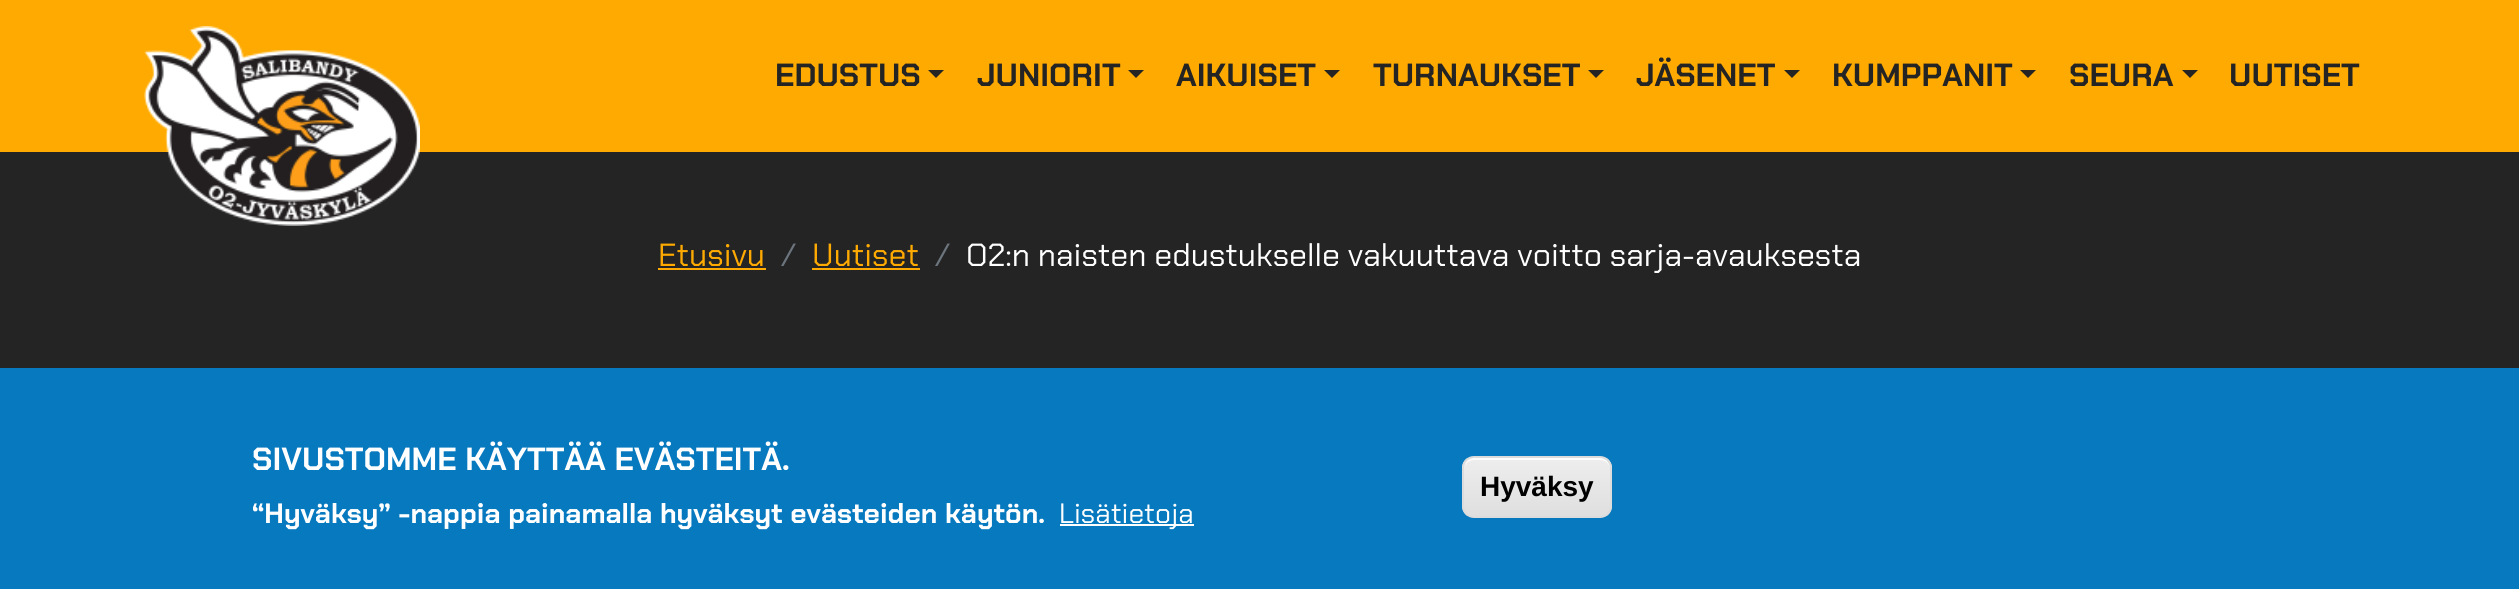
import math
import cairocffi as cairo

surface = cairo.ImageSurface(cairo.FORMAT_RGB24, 2519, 589)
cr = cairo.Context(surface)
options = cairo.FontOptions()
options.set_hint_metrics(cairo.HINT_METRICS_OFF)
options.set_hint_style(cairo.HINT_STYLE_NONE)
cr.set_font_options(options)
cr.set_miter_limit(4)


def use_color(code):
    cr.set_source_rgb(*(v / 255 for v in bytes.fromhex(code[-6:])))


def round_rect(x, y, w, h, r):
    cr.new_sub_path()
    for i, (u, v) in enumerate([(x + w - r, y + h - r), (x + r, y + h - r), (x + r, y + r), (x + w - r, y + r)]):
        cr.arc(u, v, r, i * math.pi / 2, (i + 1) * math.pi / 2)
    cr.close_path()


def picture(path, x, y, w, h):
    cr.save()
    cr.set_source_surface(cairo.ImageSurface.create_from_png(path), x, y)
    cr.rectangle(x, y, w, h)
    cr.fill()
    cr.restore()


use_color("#242424")
cr.paint()
use_color("#ffaa00")
cr.rectangle(0, 0, 2519, 152)
cr.fill()
picture("img1.png", 144, 26, 276, 200)
cr.select_font_face("Chakra Petch", cairo.FONT_SLANT_NORMAL, cairo.FONT_WEIGHT_BOLD)
cr.set_font_size(32)
use_color("#242424")
cr.move_to(775, 86)
cr.show_text("EDUSTUS")
cr.new_path()
cr.move_to(928, 70)
cr.line_to(944, 70)
cr.line_to(936, 78)
cr.close_path()
cr.fill()
cr.move_to(977, 86)
cr.show_text("JUNIORIT")
cr.new_path()
cr.move_to(1128, 70)
cr.line_to(1144, 70)
cr.line_to(1136, 78)
cr.close_path()
cr.fill()
cr.move_to(1176, 86)
cr.show_text("AIKUISET")
cr.new_path()
cr.move_to(1324, 70)
cr.line_to(1340, 70)
cr.line_to(1332, 78)
cr.close_path()
cr.fill()
cr.move_to(1373, 86)
cr.show_text("TURNAUKSET")
cr.new_path()
cr.move_to(1588, 70)
cr.line_to(1604, 70)
cr.line_to(1596, 78)
cr.close_path()
cr.fill()
cr.move_to(1636, 86)
cr.show_text("JÄSENET")
cr.new_path()
cr.move_to(1784, 70)
cr.line_to(1800, 70)
cr.line_to(1792, 78)
cr.close_path()
cr.fill()
cr.move_to(1832, 86)
cr.show_text("KUMPPANIT")
cr.new_path()
cr.move_to(2020, 70)
cr.line_to(2036, 70)
cr.line_to(2028, 78)
cr.close_path()
cr.fill()
cr.move_to(2069, 86)
cr.show_text("SEURA")
cr.new_path()
cr.move_to(2182, 70)
cr.line_to(2198, 70)
cr.line_to(2190, 78)
cr.close_path()
cr.fill()
cr.move_to(2229, 86)
cr.show_text("UUTISET")
cr.select_font_face("Chakra Petch")
use_color("#ffaa00")
cr.move_to(658, 266)
cr.show_text("Etusivu")
cr.rectangle(658, 268, 108, 2)
cr.fill()
use_color("#6c757d")
cr.move_to(781, 266)
cr.show_text("/")
use_color("#ffaa00")
cr.move_to(812, 266)
cr.show_text("Uutiset")
cr.rectangle(812, 268, 108, 2)
cr.fill()
use_color("#6c757d")
cr.move_to(935, 266)
cr.show_text("/")
use_color("#ffffff")
cr.move_to(966, 266)
cr.show_text("O2:n naisten edustukselle vakuuttava voitto sarja-avauksesta")
use_color("#0779bf")
cr.rectangle(0, 368, 2519, 221)
cr.fill()
cr.select_font_face("Chakra Petch", cairo.FONT_SLANT_NORMAL, cairo.FONT_WEIGHT_BOLD)
use_color("#ffffff")
cr.move_to(252, 470)
cr.show_text("SIVUSTOMME KÄYTTÄÄ EVÄSTEITÄ.")
cr.set_font_size(28)
cr.move_to(252, 523)
cr.show_text("“Hyväksy” -nappia painamalla hyväksyt evästeiden käytön.")
cr.rectangle(1060, 524, 134, 2)
cr.fill()
cr.select_font_face("Chakra Petch")
cr.move_to(1059, 523)
cr.show_text("Lisätietoja")
cr.save()
round_rect(1462, 456, 150, 62, 12)
cr.clip()
gradient = cairo.LinearGradient(1537, 458, 1537, 516)
gradient.add_color_stop_rgba(0.05, 0.929, 0.929, 0.929, 1)
gradient.add_color_stop_rgba(1, 0.875, 0.875, 0.875, 1)
cr.set_source(gradient)
cr.rectangle(1462, 458, 150, 58)
cr.fill()
cr.restore()
cr.new_path()
cr.move_to(1474, 460)
cr.line_to(1600, 460)
cr.curve_to(1606, 460, 1610, 464, 1610, 470)
cr.curve_to(1610, 453, 1591, 458, 1579, 458)
cr.line_to(1495, 458)
cr.curve_to(1483, 458, 1464, 453, 1464, 470)
cr.curve_to(1464, 464, 1468, 460, 1474, 460)
cr.close_path()
cr.fill()
round_rect(1463, 457, 148, 60, 11)
use_color("#dcdcdc")
cr.stroke()
cr.select_font_face("Liberation Sans", cairo.FONT_SLANT_NORMAL, cairo.FONT_WEIGHT_BOLD)
use_color("#000000")
cr.move_to(1480, 496)
cr.show_text("Hyväksy")
surface.write_to_png("result.png")
